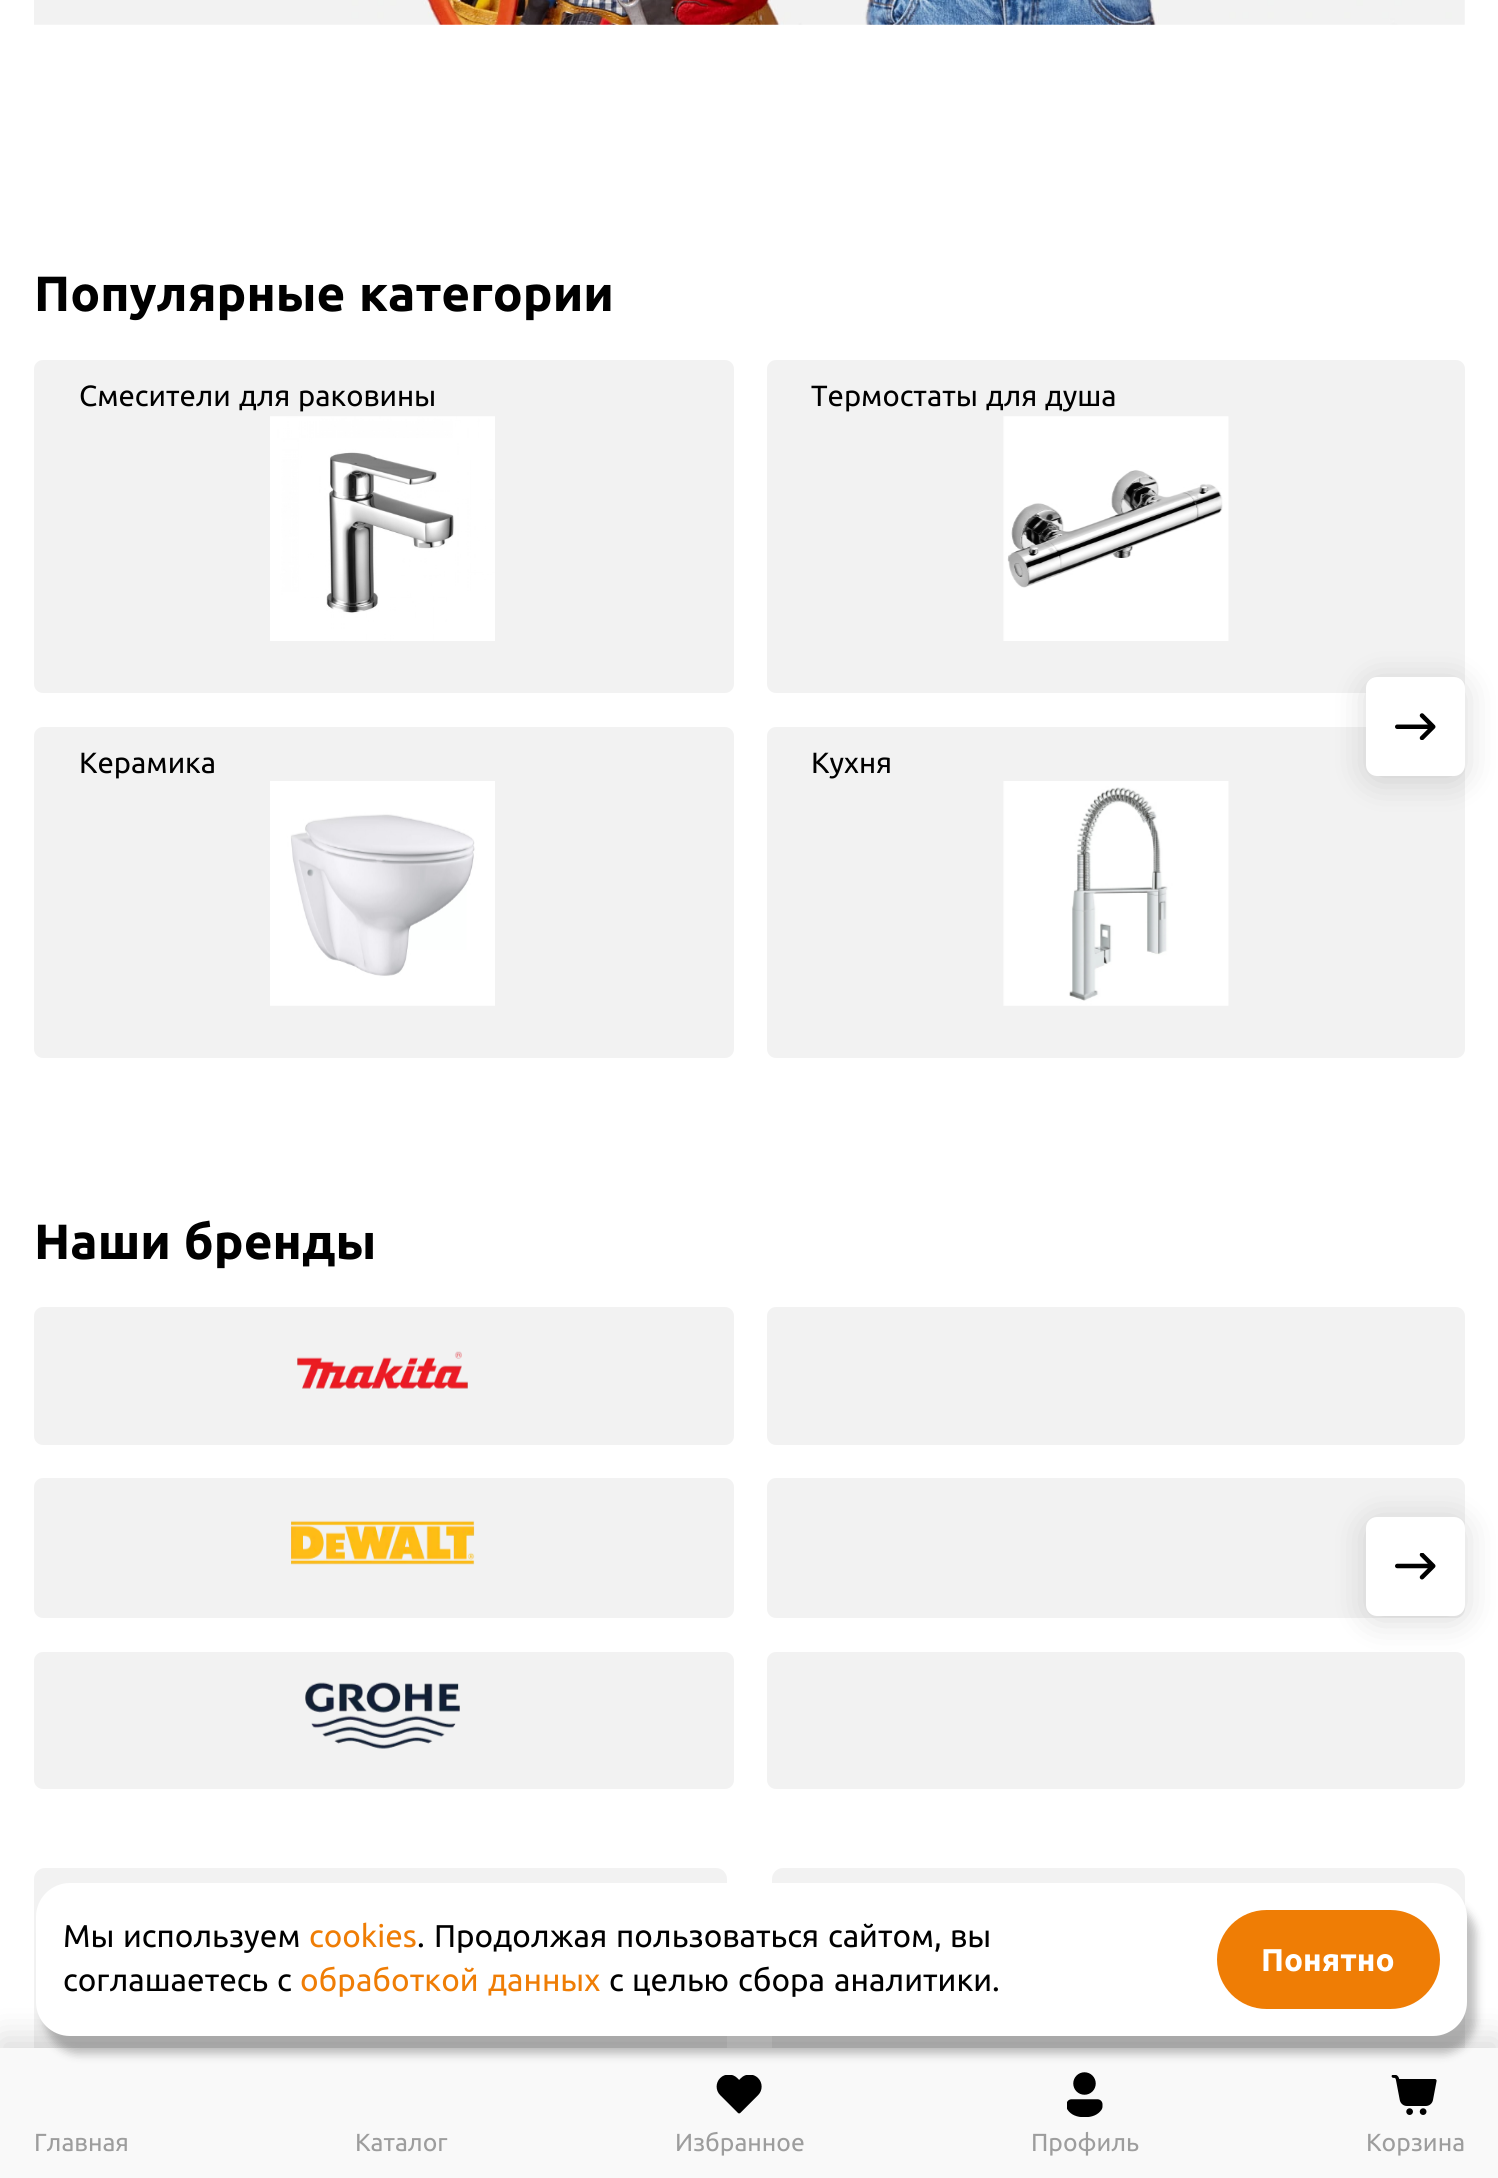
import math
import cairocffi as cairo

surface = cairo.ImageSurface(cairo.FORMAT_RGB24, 1498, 2178)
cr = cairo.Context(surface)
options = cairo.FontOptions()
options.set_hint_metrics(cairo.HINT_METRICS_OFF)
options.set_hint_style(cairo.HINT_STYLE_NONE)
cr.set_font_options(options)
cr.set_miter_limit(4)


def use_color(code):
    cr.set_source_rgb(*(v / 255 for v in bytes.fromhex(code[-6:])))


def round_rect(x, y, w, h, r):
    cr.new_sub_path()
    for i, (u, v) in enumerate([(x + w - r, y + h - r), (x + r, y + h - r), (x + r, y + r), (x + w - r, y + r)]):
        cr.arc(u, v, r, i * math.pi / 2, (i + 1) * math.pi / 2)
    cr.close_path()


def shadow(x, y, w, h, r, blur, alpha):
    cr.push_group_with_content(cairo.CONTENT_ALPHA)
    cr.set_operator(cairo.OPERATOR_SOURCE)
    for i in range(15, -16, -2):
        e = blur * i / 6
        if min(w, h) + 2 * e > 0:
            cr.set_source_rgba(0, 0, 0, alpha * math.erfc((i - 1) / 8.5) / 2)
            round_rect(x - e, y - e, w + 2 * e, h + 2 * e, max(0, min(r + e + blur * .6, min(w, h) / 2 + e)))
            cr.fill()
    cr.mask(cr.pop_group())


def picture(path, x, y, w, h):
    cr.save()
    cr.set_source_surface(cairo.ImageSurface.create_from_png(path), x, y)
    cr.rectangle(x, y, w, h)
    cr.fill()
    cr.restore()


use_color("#ffffff")
cr.paint()
picture("img1.png", 34, 0, 1431, 25)
cr.select_font_face("Ubuntu", cairo.FONT_SLANT_NORMAL, cairo.FONT_WEIGHT_BOLD)
cr.set_font_size(49.5)
use_color("#000000")
cr.move_to(34, 311)
cr.show_text("Популярные")
cr.move_to(359, 311)
cr.show_text("категории")
use_color("#f2f2f2")
round_rect(34, 360, 700, 333, 9)
cr.fill()
cr.select_font_face("Ubuntu")
cr.set_font_size(29.25)
use_color("#000000")
cr.move_to(79, 406)
cr.show_text("Смесители")
cr.move_to(239, 406)
cr.show_text("для")
cr.move_to(298, 406)
cr.show_text("раковины")
picture("img2.png", 270, 416, 225, 225)
use_color("#f2f2f2")
round_rect(767, 360, 698, 333, 9)
cr.fill()
use_color("#000000")
cr.move_to(811, 406)
cr.show_text("Термостаты")
cr.move_to(986, 406)
cr.show_text("для")
cr.move_to(1045, 406)
cr.show_text("душа")
picture("img3.png", 1003, 416, 226, 225)
use_color("#f2f2f2")
round_rect(34, 727, 700, 331, 9)
cr.fill()
use_color("#000000")
cr.move_to(79, 773)
cr.show_text("Керамика")
picture("img4.png", 270, 781, 225, 225)
use_color("#f2f2f2")
round_rect(767, 727, 698, 331, 9)
cr.fill()
use_color("#000000")
cr.move_to(811, 773)
cr.show_text("Кухня")
picture("img5.png", 1003, 781, 226, 225)
use_color("#000000")
shadow(1366, 682, 99, 99, 11, 17, 0.15)
use_color("#ffffff")
round_rect(1366, 677, 99, 99, 11)
cr.fill()
picture("img6.png", 1395, 713, 41, 27)
cr.select_font_face("Ubuntu", cairo.FONT_SLANT_NORMAL, cairo.FONT_WEIGHT_BOLD)
cr.set_font_size(49.5)
use_color("#000000")
cr.move_to(34, 1259)
cr.show_text("Наши")
cr.move_to(184, 1259)
cr.show_text("бренды")
use_color("#f2f2f2")
round_rect(34, 1307, 700, 138, 9)
cr.fill()
picture("img7.png", 297, 1351, 171, 38)
round_rect(767, 1307, 698, 138, 9)
cr.fill()
round_rect(34, 1478, 700, 140, 9)
cr.fill()
picture("img8.png", 291, 1520, 184, 45)
round_rect(767, 1478, 698, 140, 9)
cr.fill()
round_rect(34, 1652, 700, 137, 9)
cr.fill()
picture("img9.png", 305, 1682, 155, 67)
round_rect(767, 1652, 698, 137, 9)
cr.fill()
use_color("#000000")
shadow(1366, 1521, 99, 99, 11, 17, 0.15)
use_color("#ffffff")
round_rect(1366, 1517, 99, 99, 11)
cr.fill()
picture("img10.png", 1395, 1553, 41, 27)
use_color("#f2f2f2")
round_rect(34, 1868, 693, 209, 11)
cr.fill()
round_rect(772, 1868, 693, 209, 11)
cr.fill()
use_color("#000000")
shadow(0, 2039, 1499, 130, 0, 17, 0.15)
use_color("#f9f9f9")
cr.rectangle(0, 2048, 1498, 130)
cr.fill()
cr.select_font_face("Ubuntu")
cr.set_font_size(24.75)
use_color("#9d9d9d")
cr.move_to(34, 2151)
cr.show_text("Главная")
cr.move_to(355, 2151)
cr.show_text("Каталог")
picture("img11.png", 716, 2075, 46, 39)
cr.move_to(675, 2151)
cr.show_text("Избранное")
picture("img12.png", 1067, 2072, 36, 45)
cr.move_to(1031, 2151)
cr.show_text("Профиль")
picture("img13.png", 1391, 2075, 46, 40)
cr.move_to(1366, 2151)
cr.show_text("Корзина")
use_color("#000000")
shadow(45, 1901, 1431, 153, 34, 4.5, 0.25)
use_color("#ffffff")
round_rect(36, 1883, 1431, 153, 34)
cr.fill()
cr.set_font_size(31.5)
use_color("#000000")
cr.move_to(63, 1947)
cr.show_text("Мы")
cr.move_to(123, 1947)
cr.show_text("используем")
use_color("#ef7d05")
cr.move_to(309, 1947)
cr.show_text("cookies")
use_color("#000000")
cr.move_to(417, 1947)
cr.show_text(".")
cr.move_to(434, 1947)
cr.show_text("Продолжая")
cr.move_to(616, 1947)
cr.show_text("пользоваться")
cr.move_to(828, 1947)
cr.show_text("сайтом,")
cr.move_to(950, 1947)
cr.show_text("вы")
cr.move_to(63, 1991)
cr.show_text("соглашаетесь")
cr.move_to(277, 1991)
cr.show_text("с")
use_color("#ef7d05")
cr.move_to(300, 1991)
cr.show_text("обработкой")
cr.move_to(488, 1991)
cr.show_text("данных")
use_color("#000000")
cr.move_to(609, 1991)
cr.show_text("с")
cr.move_to(632, 1991)
cr.show_text("целью")
cr.move_to(738, 1991)
cr.show_text("сбора")
cr.move_to(834, 1991)
cr.show_text("аналитики.")
use_color("#ef7d05")
round_rect(1217, 1910, 223, 99, 49.5)
cr.fill()
cr.select_font_face("Ubuntu", cairo.FONT_SLANT_NORMAL, cairo.FONT_WEIGHT_BOLD)
use_color("#ffffff")
cr.move_to(1261, 1971)
cr.show_text("Понятно")
surface.write_to_png("result.png")
